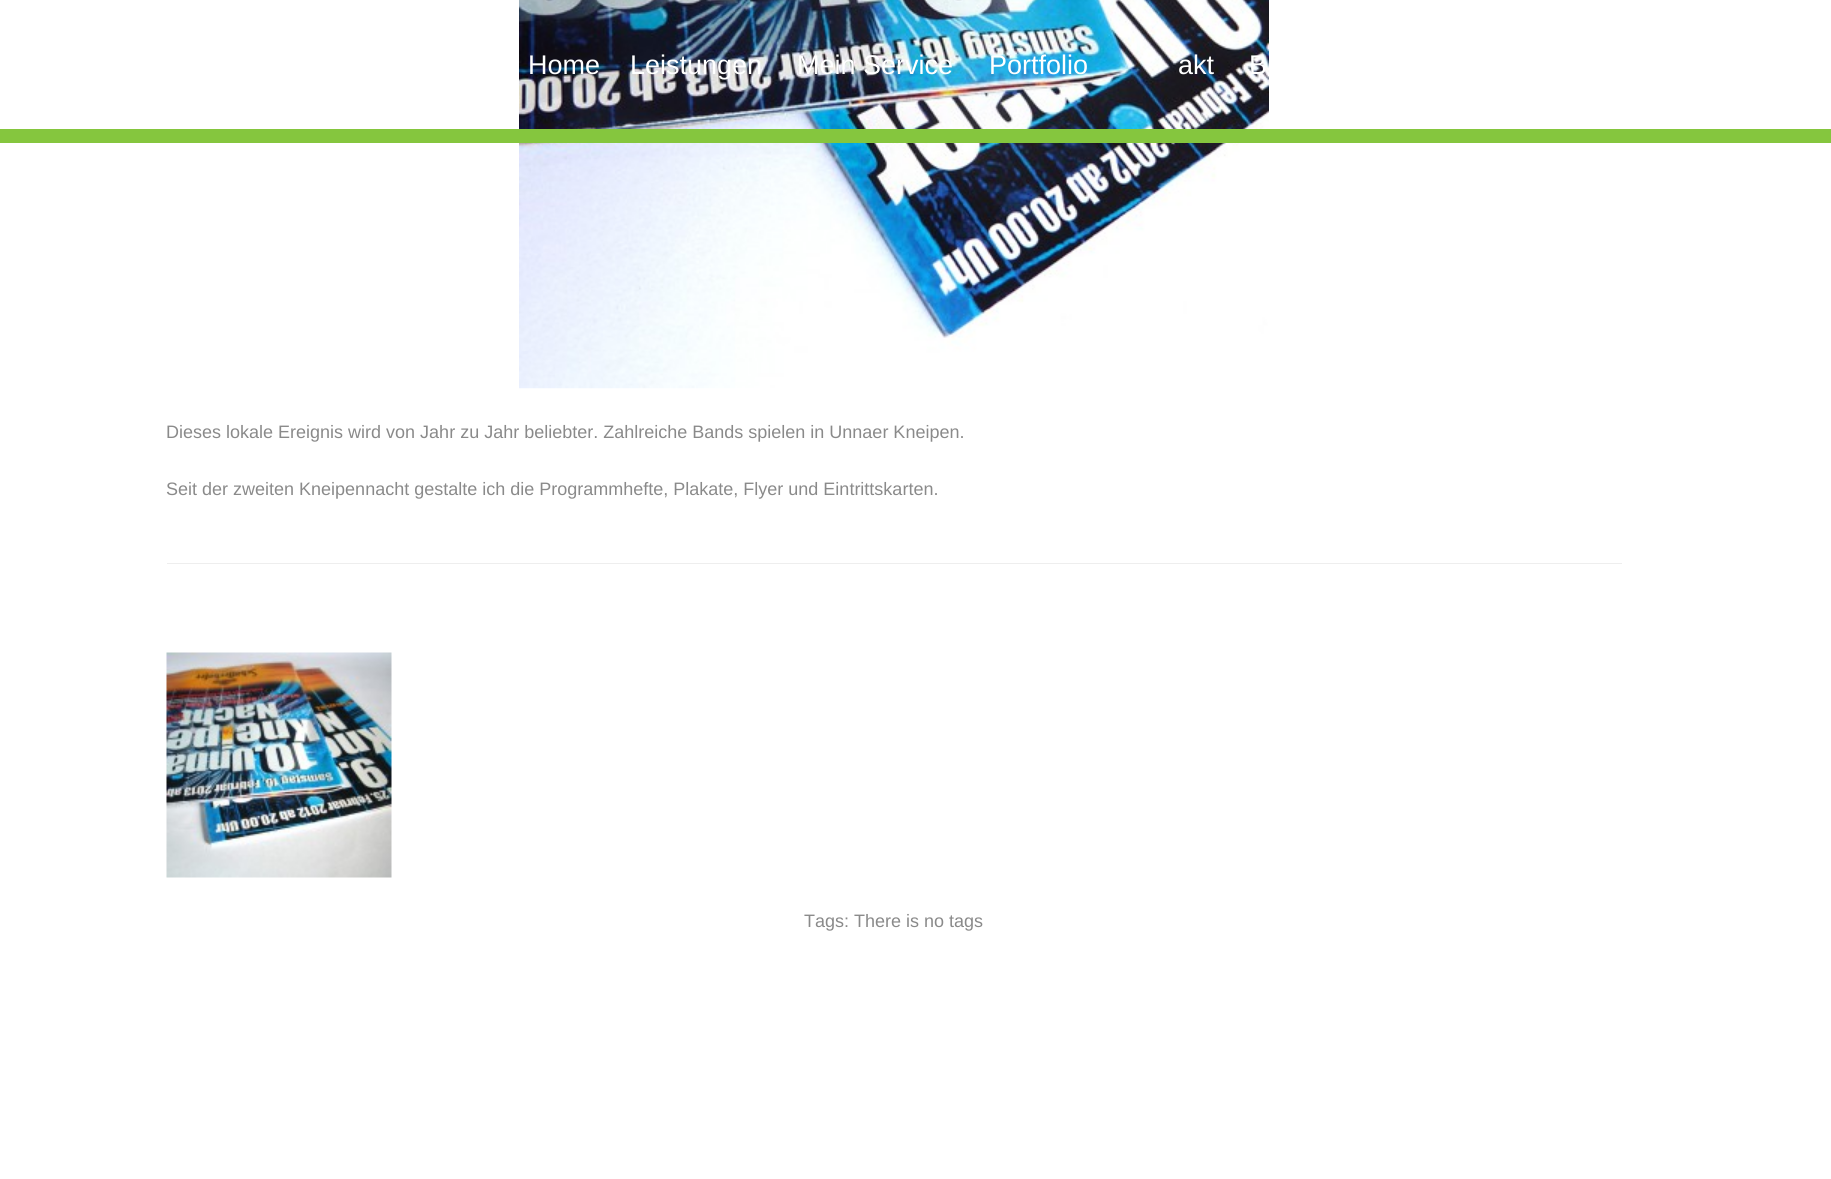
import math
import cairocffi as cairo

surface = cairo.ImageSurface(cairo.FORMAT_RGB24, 1831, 1179)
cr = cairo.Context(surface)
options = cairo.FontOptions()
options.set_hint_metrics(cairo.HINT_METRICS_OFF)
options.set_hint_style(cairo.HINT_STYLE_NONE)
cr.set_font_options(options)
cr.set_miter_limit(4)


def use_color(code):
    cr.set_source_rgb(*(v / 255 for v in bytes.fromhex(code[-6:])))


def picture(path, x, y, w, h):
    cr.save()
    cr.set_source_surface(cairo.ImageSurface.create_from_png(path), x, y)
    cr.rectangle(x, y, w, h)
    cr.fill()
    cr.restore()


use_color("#ffffff")
cr.paint()
picture("img1.png", 519, 0, 750, 389)
use_color("#85c63e")
cr.rectangle(0, 129, 1831, 14)
cr.fill()
cr.select_font_face("Liberation Sans")
cr.set_font_size(27)
use_color("#ffffff")
cr.move_to(528, 74)
cr.show_text("Home")
cr.move_to(630, 74)
cr.show_text("Leistungen")
cr.move_to(797, 74)
cr.show_text("Mein Service")
cr.move_to(989, 74)
cr.show_text("Portfolio")
cr.move_to(1178, 74)
cr.show_text("akt")
cr.move_to(1249, 74)
cr.show_text("B")
cr.set_font_size(18)
use_color("#8a8a8a")
cr.move_to(166, 438)
cr.show_text("Dieses lokale Ereignis wird von Jahr zu Jahr beliebter. Zahlreiche Bands spielen in Unnaer Kneipen.")
cr.move_to(166, 495)
cr.show_text("Seit der zweiten Kneipennacht gestalte ich die Programmhefte, Plakate, Flyer und Eintrittskarten.")
use_color("#eeeeee")
cr.rectangle(167, 563, 1455, 1)
cr.fill()
picture("img2.png", 166, 652, 226, 226)
use_color("#8a8a8a")
cr.move_to(804, 927)
cr.show_text("Tags: There is no tags")
surface.write_to_png("result.png")
